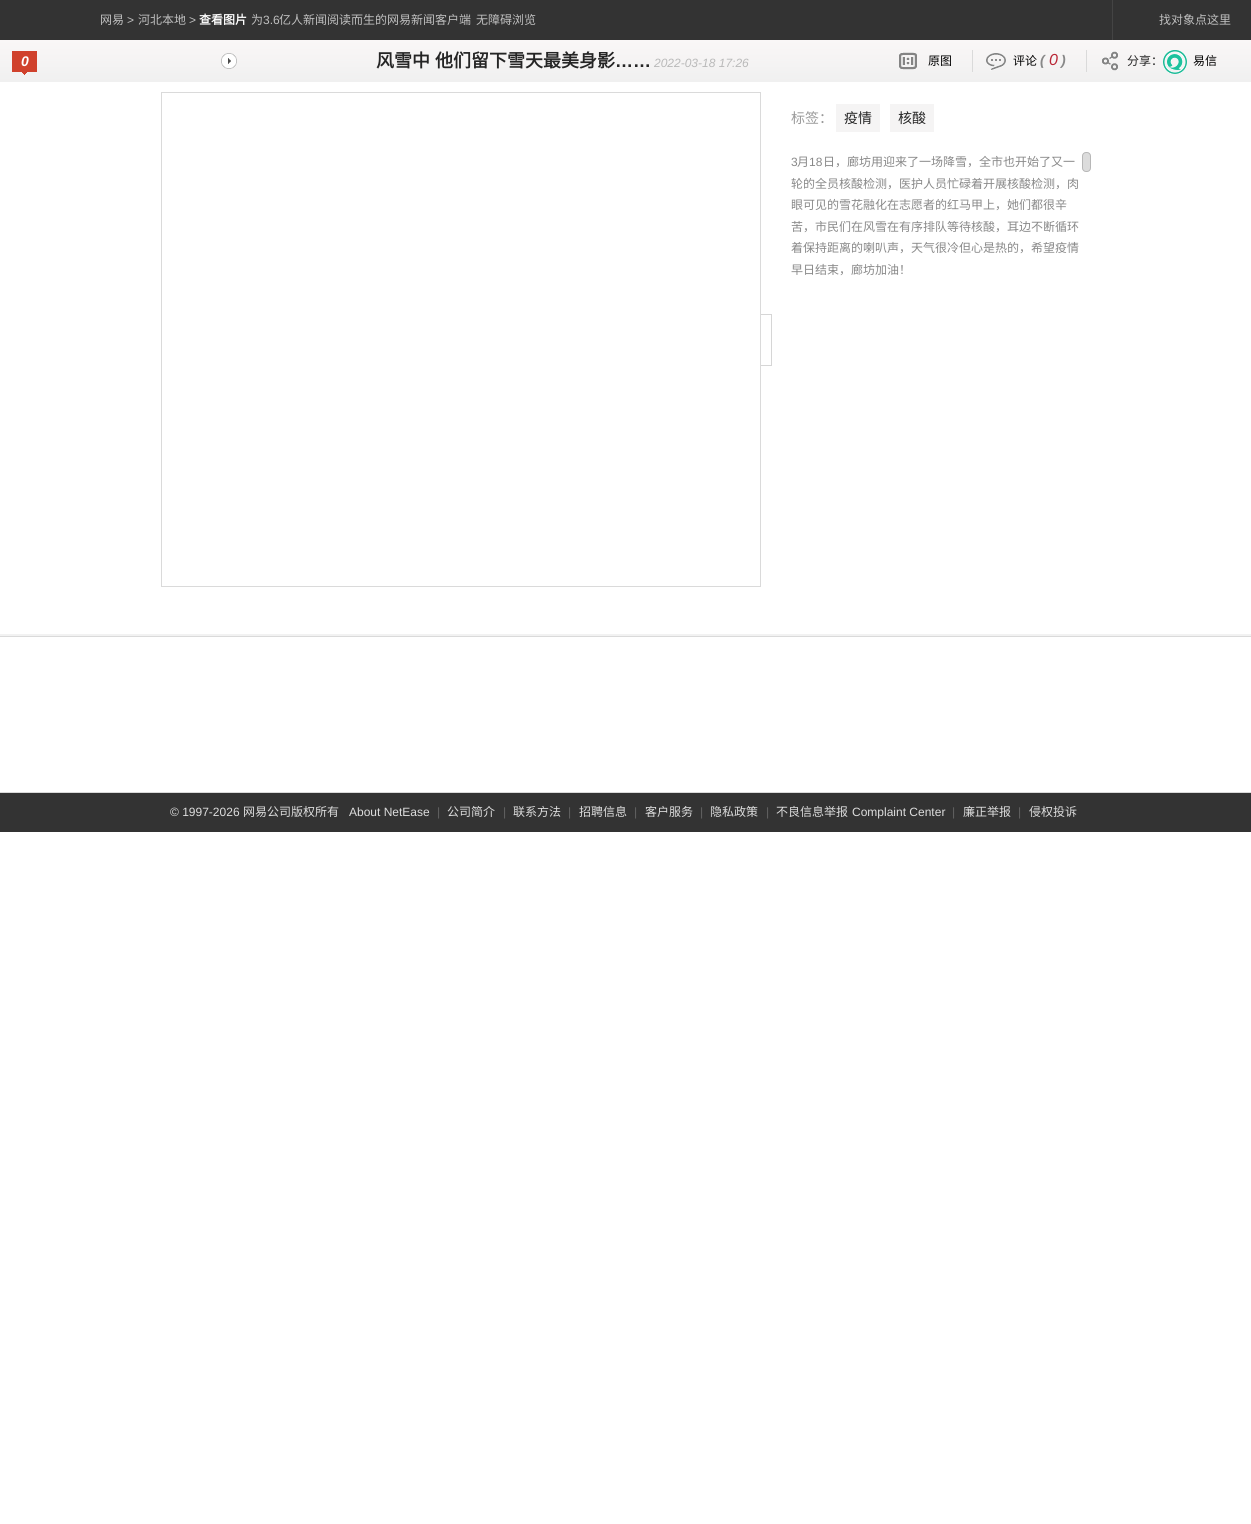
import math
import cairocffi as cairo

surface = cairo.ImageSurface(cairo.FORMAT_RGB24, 1251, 1524)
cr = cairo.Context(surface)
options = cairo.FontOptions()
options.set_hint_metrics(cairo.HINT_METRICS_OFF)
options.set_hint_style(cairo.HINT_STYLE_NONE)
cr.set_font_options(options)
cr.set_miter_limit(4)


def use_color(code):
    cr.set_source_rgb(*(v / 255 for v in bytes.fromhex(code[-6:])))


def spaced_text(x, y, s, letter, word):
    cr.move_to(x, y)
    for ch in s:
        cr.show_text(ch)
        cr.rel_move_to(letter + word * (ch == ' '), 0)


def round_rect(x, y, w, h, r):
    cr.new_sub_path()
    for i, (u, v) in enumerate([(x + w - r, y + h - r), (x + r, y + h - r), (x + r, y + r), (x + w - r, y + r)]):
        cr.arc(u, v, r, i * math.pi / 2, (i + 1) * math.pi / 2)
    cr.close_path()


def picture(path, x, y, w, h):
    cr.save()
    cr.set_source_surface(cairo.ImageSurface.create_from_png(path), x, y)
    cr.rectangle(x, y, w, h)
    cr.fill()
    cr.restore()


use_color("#ffffff")
cr.paint()
use_color("#333333")
cr.rectangle(0, 0, 1251, 40)
cr.fill()
cr.select_font_face("Noto Sans CJK SC")
cr.set_font_size(12)
use_color("#bfbfbf")
cr.move_to(100, 24)
cr.show_text("网易")
cr.select_font_face("Liberation Sans")
cr.move_to(127, 24)
cr.show_text(">")
cr.select_font_face("Noto Sans CJK SC")
cr.move_to(138, 24)
cr.show_text("河北本地")
cr.select_font_face("Liberation Sans")
cr.move_to(189, 24)
cr.show_text(">")
cr.select_font_face("Noto Sans CJK SC", cairo.FONT_SLANT_NORMAL, cairo.FONT_WEIGHT_BOLD)
use_color("#ffffff")
cr.move_to(199, 24)
cr.show_text("查看图片")
cr.select_font_face("Noto Sans CJK SC")
use_color("#bfbfbf")
cr.move_to(251, 24)
cr.show_text("为")
cr.select_font_face("Liberation Sans")
cr.move_to(263, 24)
cr.show_text("3.6")
cr.select_font_face("Noto Sans CJK SC")
cr.move_to(279, 24)
cr.show_text("亿人新闻阅读而生的网易新闻客户端")
cr.move_to(476, 24)
cr.show_text("无障碍浏览")
use_color("#444444")
cr.rectangle(1112, 0, 1, 40)
cr.fill()
use_color("#bfbfbf")
cr.move_to(1159, 24)
cr.show_text("找对象点这里")
gradient = cairo.LinearGradient(626, 40, 626, 82)
gradient.add_color_stop_rgba(0, 0.98, 0.969, 0.969, 1)
gradient.add_color_stop_rgba(1, 0.941, 0.941, 0.941, 1)
cr.set_source(gradient)
cr.rectangle(0, 40, 1251, 42)
cr.fill()
picture("img1.png", 12, 51, 25, 24)
cr.select_font_face("Liberation Sans", cairo.FONT_SLANT_ITALIC, cairo.FONT_WEIGHT_BOLD)
cr.set_font_size(14)
use_color("#ffffff")
cr.move_to(21, 66)
cr.show_text("0")
picture("img2.png", 221, 53, 16, 16)
cr.select_font_face("Noto Sans CJK SC", cairo.FONT_SLANT_NORMAL, cairo.FONT_WEIGHT_BOLD)
cr.set_font_size(18)
use_color("#252525")
spaced_text(376, 67, "风雪中 他们留下雪天最美身影", 0, 1)
cr.select_font_face("Liberation Sans", cairo.FONT_SLANT_NORMAL, cairo.FONT_WEIGHT_BOLD)
cr.move_to(615, 67)
cr.show_text("……")
cr.select_font_face("Liberation Sans", cairo.FONT_SLANT_ITALIC)
cr.set_font_size(12)
use_color("#b9b9b9")
cr.move_to(654, 67)
cr.show_text("2022-03-18 17:26")
picture("img3.png", 899, 52, 18, 18)
cr.select_font_face("Noto Sans CJK SC")
use_color("#000000")
cr.move_to(928, 65)
cr.show_text("原图")
use_color("#dadada")
cr.rectangle(972, 50, 1, 22)
cr.fill()
picture("img4.png", 986, 53, 20, 18)
use_color("#000000")
cr.move_to(1013, 65)
cr.show_text("评论")
cr.select_font_face("Liberation Sans", cairo.FONT_SLANT_ITALIC, cairo.FONT_WEIGHT_BOLD)
cr.set_font_size(14)
use_color("#888888")
cr.move_to(1040, 65)
cr.show_text("(")
cr.select_font_face("Liberation Sans", cairo.FONT_SLANT_ITALIC)
cr.set_font_size(16)
use_color("#b92635")
cr.move_to(1049, 65)
cr.show_text("0")
cr.select_font_face("Liberation Sans", cairo.FONT_SLANT_ITALIC, cairo.FONT_WEIGHT_BOLD)
cr.set_font_size(14)
use_color("#888888")
cr.move_to(1061, 65)
cr.show_text(")")
use_color("#dadada")
cr.rectangle(1086, 50, 1, 22)
cr.fill()
picture("img5.png", 1102, 51, 16, 20)
cr.select_font_face("Noto Sans CJK SC")
cr.set_font_size(12)
use_color("#252525")
cr.move_to(1127, 65)
cr.show_text("分享：")
picture("img6.png", 1163, 50, 24, 24)
use_color("#000000")
cr.move_to(1193, 65)
cr.show_text("易信")
cr.rectangle(161.5, 92.5, 599, 494)
use_color("#dadada")
cr.set_line_width(1)
cr.stroke()
use_color("#d6d6d6")
cr.rectangle(761, 314, 11, 1)
cr.fill()
cr.rectangle(771, 314, 1, 52)
cr.fill()
cr.rectangle(761, 365, 11, 1)
cr.fill()
cr.set_font_size(14)
use_color("#999999")
cr.move_to(791, 123)
cr.show_text("标签：")
use_color("#f5f4f4")
cr.rectangle(836, 104, 44, 28)
cr.fill()
use_color("#252525")
cr.move_to(844, 123)
cr.show_text("疫情")
use_color("#f5f4f4")
cr.rectangle(890, 104, 44, 28)
cr.fill()
use_color("#252525")
cr.move_to(898, 123)
cr.show_text("核酸")
cr.select_font_face("Liberation Sans")
cr.set_font_size(12)
use_color("#888888")
cr.move_to(791, 166)
cr.show_text("3")
cr.select_font_face("Noto Sans CJK SC")
cr.move_to(797, 166)
cr.show_text("月")
cr.select_font_face("Liberation Sans")
cr.move_to(809, 166)
cr.show_text("18")
cr.select_font_face("Noto Sans CJK SC")
cr.move_to(823, 166)
cr.show_text("日，廊坊用迎来了一场降雪，全市也开始了又一")
cr.move_to(791, 188)
cr.show_text("轮的全员核酸检测，医护人员忙碌着开展核酸检测，肉")
cr.move_to(791, 209)
cr.show_text("眼可见的雪花融化在志愿者的红马甲上，她们都很辛")
cr.move_to(791, 231)
cr.show_text("苦，市民们在风雪在有序排队等待核酸，耳边不断循环")
cr.move_to(791, 252)
cr.show_text("着保持距离的喇叭声，天气很冷但心是热的，希望疫情")
cr.move_to(791, 274)
cr.show_text("早日结束，廊坊加油！")
use_color("#dcdcdc")
round_rect(1082.5, 152.5, 8, 19, 3.5)
cr.fill_preserve()
use_color("#b7b7b7")
cr.stroke()
use_color("#dadada")
cr.rectangle(0, 792, 1251, 1)
cr.fill()
use_color("#f2f2f2")
cr.rectangle(0, 634, 1251, 2)
cr.fill()
use_color("#dadada")
cr.rectangle(0, 636, 1251, 1)
cr.fill()
use_color("#333333")
cr.rectangle(0, 793, 1251, 39)
cr.fill()
cr.select_font_face("Liberation Sans")
use_color("#dddddd")
cr.move_to(170, 816)
cr.show_text("© 1997-2026")
cr.select_font_face("Noto Sans CJK SC")
cr.move_to(243, 816)
cr.show_text("网易公司版权所有")
cr.select_font_face("Liberation Sans")
cr.move_to(349, 816)
cr.show_text("About NetEase")
use_color("#616161")
cr.move_to(437, 816)
cr.show_text("|")
cr.select_font_face("Noto Sans CJK SC")
use_color("#dddddd")
cr.move_to(447, 816)
cr.show_text("公司简介")
cr.select_font_face("Liberation Sans")
use_color("#616161")
cr.move_to(503, 816)
cr.show_text("|")
cr.select_font_face("Noto Sans CJK SC")
use_color("#dddddd")
cr.move_to(513, 816)
cr.show_text("联系方法")
cr.select_font_face("Liberation Sans")
use_color("#616161")
cr.move_to(568, 816)
cr.show_text("|")
cr.select_font_face("Noto Sans CJK SC")
use_color("#dddddd")
cr.move_to(579, 816)
cr.show_text("招聘信息")
cr.select_font_face("Liberation Sans")
use_color("#616161")
cr.move_to(634, 816)
cr.show_text("|")
cr.select_font_face("Noto Sans CJK SC")
use_color("#dddddd")
cr.move_to(645, 816)
cr.show_text("客户服务")
cr.select_font_face("Liberation Sans")
use_color("#616161")
cr.move_to(700, 816)
cr.show_text("|")
cr.select_font_face("Noto Sans CJK SC")
use_color("#dddddd")
cr.move_to(710, 816)
cr.show_text("隐私政策")
cr.select_font_face("Liberation Sans")
use_color("#616161")
cr.move_to(766, 816)
cr.show_text("|")
cr.select_font_face("Noto Sans CJK SC")
use_color("#dddddd")
cr.move_to(776, 816)
cr.show_text("不良信息举报")
cr.select_font_face("Liberation Sans")
cr.move_to(852, 816)
cr.show_text("Complaint Center")
use_color("#616161")
cr.move_to(952, 816)
cr.show_text("|")
cr.select_font_face("Noto Sans CJK SC")
use_color("#dddddd")
cr.move_to(963, 816)
cr.show_text("廉正举报")
cr.select_font_face("Liberation Sans")
use_color("#616161")
cr.move_to(1018, 816)
cr.show_text("|")
cr.select_font_face("Noto Sans CJK SC")
use_color("#dddddd")
cr.move_to(1029, 816)
cr.show_text("侵权投诉")
surface.write_to_png("result.png")
